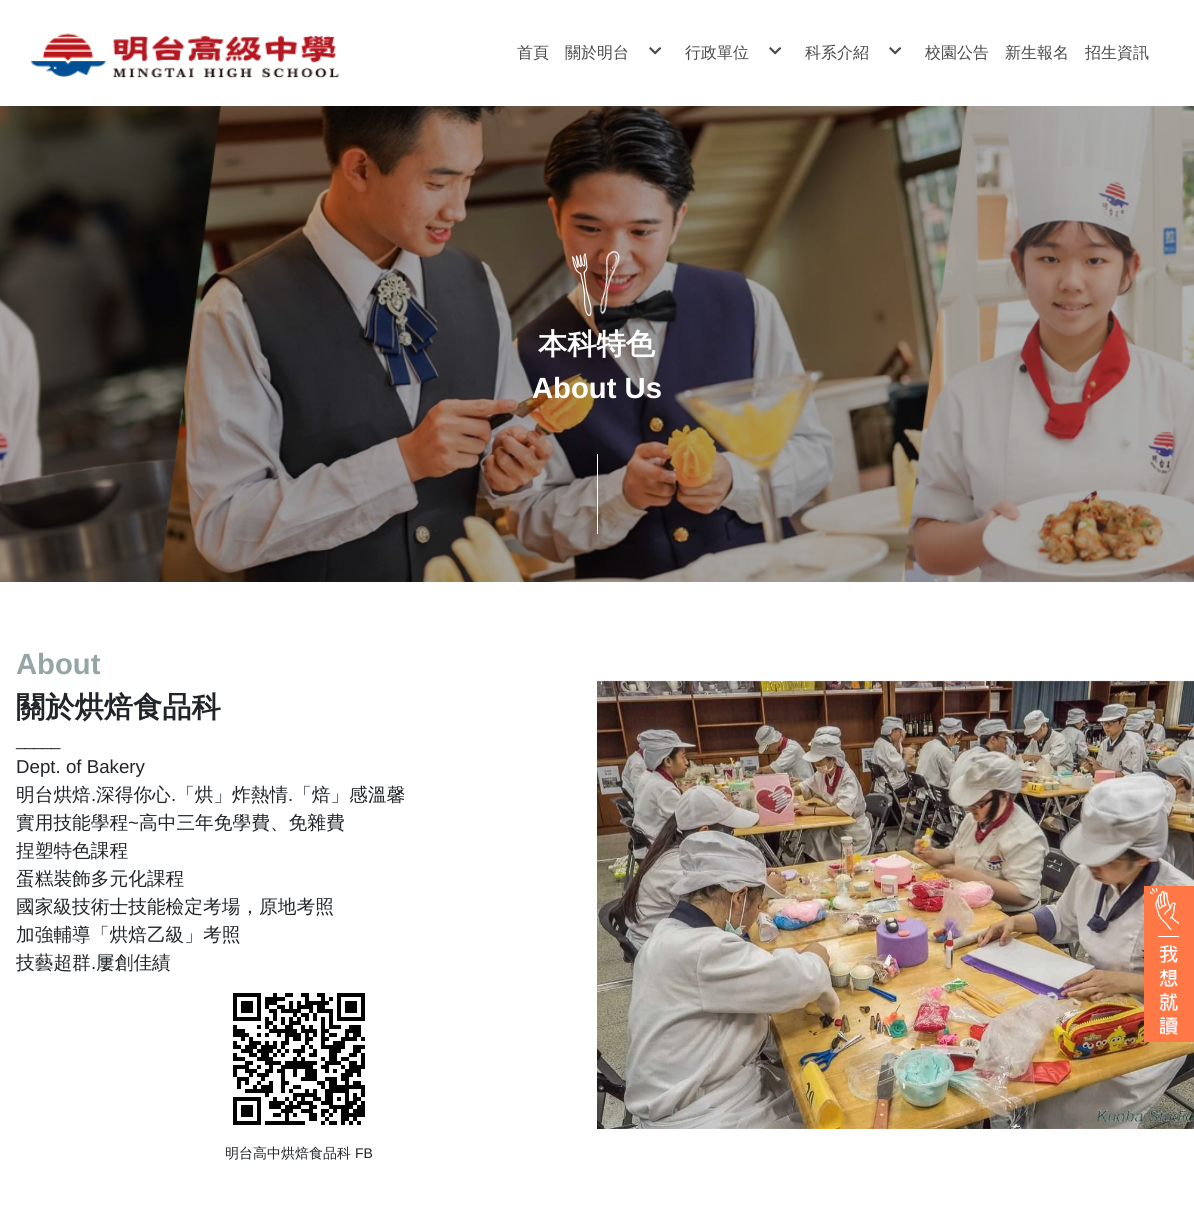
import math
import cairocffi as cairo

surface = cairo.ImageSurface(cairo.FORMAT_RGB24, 1194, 1218)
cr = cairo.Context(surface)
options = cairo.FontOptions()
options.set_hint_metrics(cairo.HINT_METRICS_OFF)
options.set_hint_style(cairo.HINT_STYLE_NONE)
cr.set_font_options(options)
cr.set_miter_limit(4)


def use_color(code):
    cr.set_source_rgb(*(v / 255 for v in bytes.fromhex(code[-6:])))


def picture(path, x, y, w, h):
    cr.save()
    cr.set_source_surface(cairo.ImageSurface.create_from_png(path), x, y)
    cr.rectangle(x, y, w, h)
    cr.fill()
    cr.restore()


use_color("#ffffff")
cr.paint()
picture("img1.png", 31, 32, 308, 47)
cr.select_font_face("WenQuanYi Zen Hei Medium")
cr.set_font_size(16)
use_color("#4a4a4a")
cr.move_to(517, 58)
cr.show_text("首頁")
cr.move_to(565, 58)
cr.show_text("關於明台")
picture("img2.png", 649, 47, 12, 8)
cr.move_to(685, 58)
cr.show_text("行政單位")
picture("img2.png", 769, 47, 12, 8)
cr.move_to(805, 58)
cr.show_text("科系介紹")
picture("img2.png", 889, 47, 12, 8)
cr.move_to(925, 58)
cr.show_text("校園公告")
cr.move_to(1005, 58)
cr.show_text("新生報名")
cr.move_to(1085, 58)
cr.show_text("招生資訊")
picture("img3.png", 0, 106, 1194, 476)
picture("img4.png", 572, 250, 48, 66)
cr.select_font_face("WenQuanYi Zen Hei", cairo.FONT_SLANT_NORMAL, cairo.FONT_WEIGHT_BOLD)
cr.set_font_size(29.25)
use_color("#ffffff")
cr.move_to(538, 354)
cr.show_text("本科特色")
cr.select_font_face("Liberation Sans", cairo.FONT_SLANT_NORMAL, cairo.FONT_WEIGHT_BOLD)
cr.move_to(532, 398)
cr.show_text("About Us")
cr.rectangle(597, 454, 1, 80)
cr.fill()
use_color("#95a5a6")
cr.move_to(16, 674)
cr.show_text("About")
cr.select_font_face("WenQuanYi Zen Hei", cairo.FONT_SLANT_NORMAL, cairo.FONT_WEIGHT_BOLD)
use_color("#212529")
cr.move_to(16, 717)
cr.show_text("關於烘焙食品科")
cr.select_font_face("Liberation Sans")
cr.set_font_size(16)
cr.move_to(16, 746)
cr.show_text("_____")
cr.set_font_size(18.7)
cr.move_to(16, 773)
cr.show_text("Dept. of Bakery")
cr.select_font_face("WenQuanYi Zen Hei Medium")
cr.move_to(16, 801)
cr.show_text("明台烘焙")
cr.select_font_face("Liberation Sans")
cr.move_to(91, 801)
cr.show_text(".")
cr.select_font_face("WenQuanYi Zen Hei Medium")
cr.move_to(96, 801)
cr.show_text("深得你心")
cr.select_font_face("Liberation Sans")
cr.move_to(171, 801)
cr.show_text(".")
cr.select_font_face("WenQuanYi Zen Hei Medium")
cr.move_to(176, 801)
cr.show_text("「烘」炸熱情")
cr.select_font_face("Liberation Sans")
cr.move_to(288, 801)
cr.show_text(".")
cr.select_font_face("WenQuanYi Zen Hei Medium")
cr.move_to(293, 801)
cr.show_text("「焙」感溫馨")
cr.move_to(16, 829)
cr.show_text("實用技能學程")
cr.select_font_face("Liberation Sans")
cr.move_to(128, 829)
cr.show_text("~")
cr.select_font_face("WenQuanYi Zen Hei Medium")
cr.move_to(139, 829)
cr.show_text("高中三年免學費、免雜費")
cr.move_to(16, 857)
cr.show_text("捏塑特色課程")
cr.move_to(16, 885)
cr.show_text("蛋糕裝飾多元化課程")
cr.move_to(16, 913)
cr.show_text("國家級技術士技能檢定考場，原地考照")
cr.move_to(16, 941)
cr.show_text("加強輔導「烘焙乙級」考照")
cr.move_to(16, 969)
cr.show_text("技藝超群")
cr.select_font_face("Liberation Sans")
cr.move_to(91, 969)
cr.show_text(".")
cr.select_font_face("WenQuanYi Zen Hei Medium")
cr.move_to(96, 969)
cr.show_text("屢創佳績")
picture("img5.png", 233, 993, 132, 132)
cr.set_font_size(14)
cr.move_to(225, 1158)
cr.show_text("明台高中烘焙食品科")
cr.select_font_face("Liberation Sans")
cr.move_to(355, 1158)
cr.show_text("FB")
picture("img6.png", 597, 680, 597, 449)
picture("img7.png", 1144, 886, 50, 156)
surface.write_to_png("result.png")
